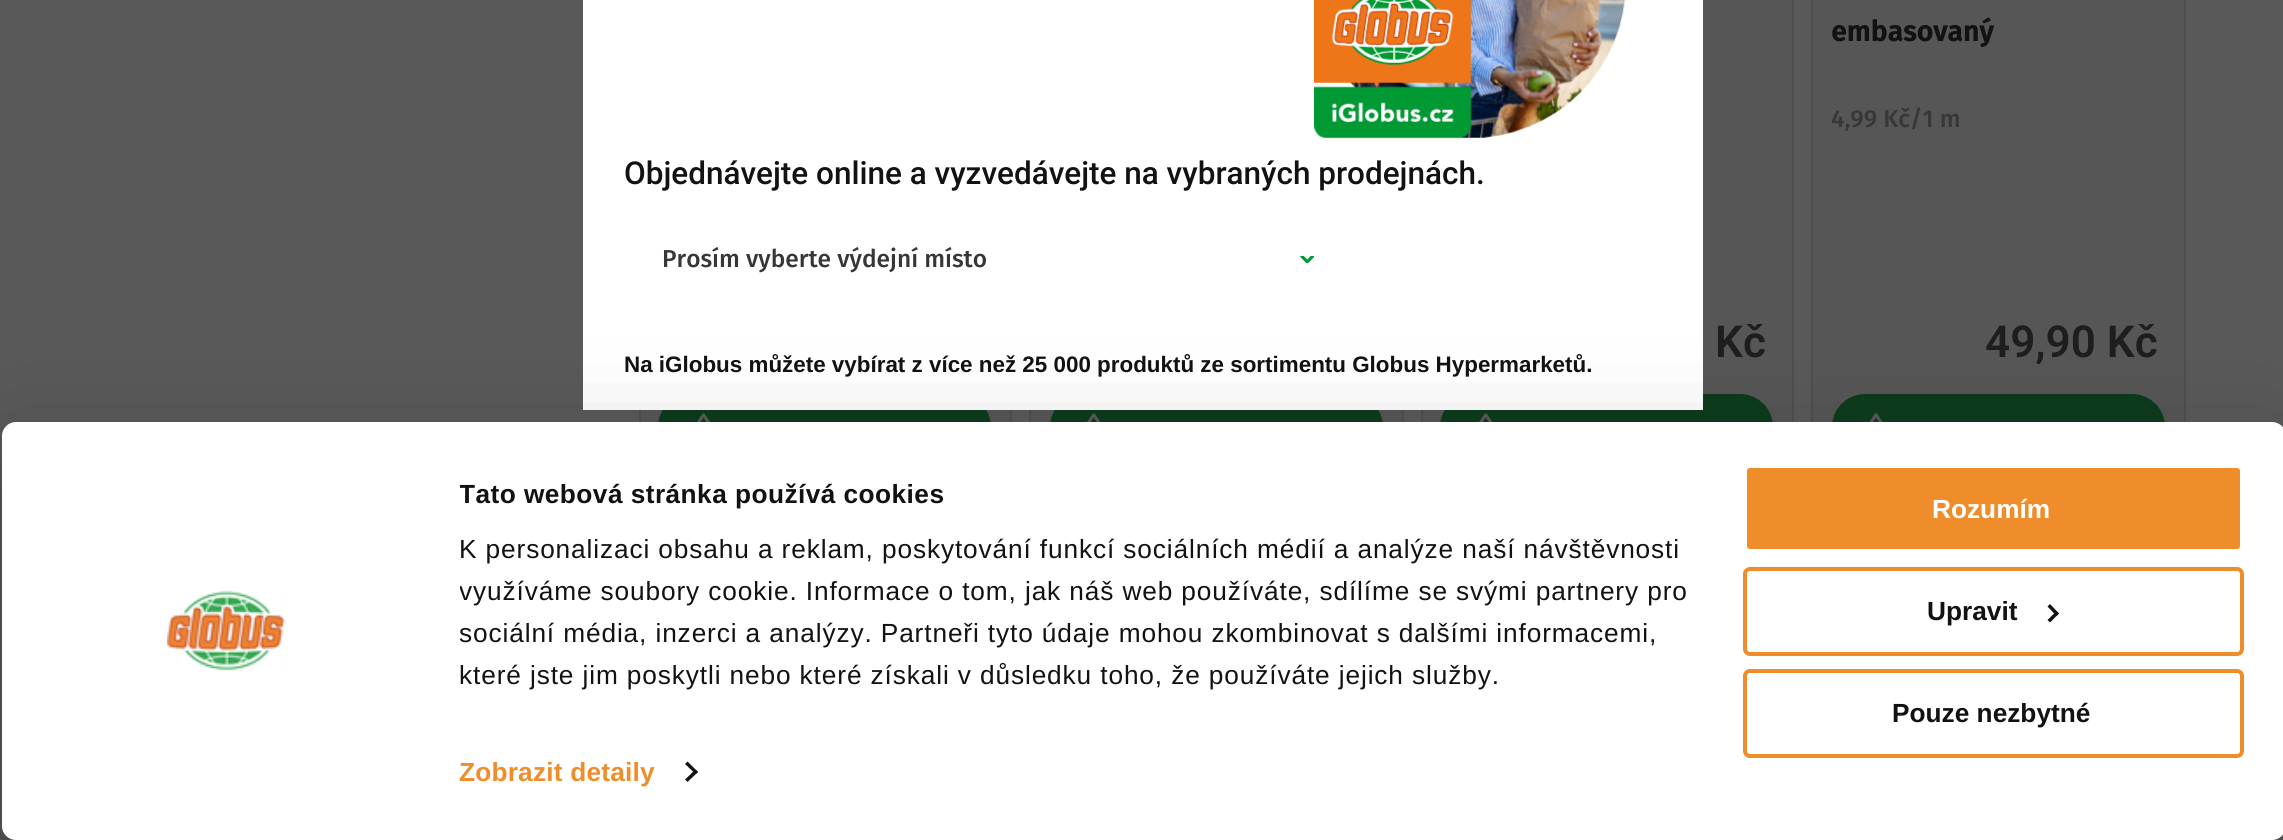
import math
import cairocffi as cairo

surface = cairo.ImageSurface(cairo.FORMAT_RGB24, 2283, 840)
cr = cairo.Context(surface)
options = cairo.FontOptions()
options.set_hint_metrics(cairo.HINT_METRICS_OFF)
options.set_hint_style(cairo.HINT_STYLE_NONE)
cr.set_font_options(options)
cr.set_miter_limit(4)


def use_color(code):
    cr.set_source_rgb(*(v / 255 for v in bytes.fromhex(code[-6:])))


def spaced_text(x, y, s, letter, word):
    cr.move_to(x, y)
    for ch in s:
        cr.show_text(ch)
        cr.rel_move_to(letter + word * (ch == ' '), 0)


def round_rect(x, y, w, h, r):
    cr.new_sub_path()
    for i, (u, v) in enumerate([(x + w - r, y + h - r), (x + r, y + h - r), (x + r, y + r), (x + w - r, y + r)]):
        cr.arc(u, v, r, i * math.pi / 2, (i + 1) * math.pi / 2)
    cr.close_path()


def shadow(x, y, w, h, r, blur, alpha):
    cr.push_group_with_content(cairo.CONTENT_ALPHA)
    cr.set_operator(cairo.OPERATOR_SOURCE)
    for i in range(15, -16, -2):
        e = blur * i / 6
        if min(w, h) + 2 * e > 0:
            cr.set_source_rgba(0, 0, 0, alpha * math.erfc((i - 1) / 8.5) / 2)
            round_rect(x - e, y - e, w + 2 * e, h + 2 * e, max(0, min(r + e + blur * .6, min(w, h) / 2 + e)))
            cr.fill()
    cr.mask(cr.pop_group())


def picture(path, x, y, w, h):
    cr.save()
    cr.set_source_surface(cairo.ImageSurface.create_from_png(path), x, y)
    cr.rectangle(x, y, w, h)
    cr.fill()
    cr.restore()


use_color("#595959")
cr.paint()
use_color("#565656")
cr.rectangle(641, 410, 369, 12)
cr.fill()
cr.rectangle(640, -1, 371, 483)
use_color("#4f4f4e")
cr.stroke()
use_color("#0d3b1c")
round_rect(658, 394, 333, 66, 33)
cr.fill()
use_color("#565656")
cr.rectangle(1031, 410, 371, 12)
cr.fill()
cr.rectangle(1030, -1, 373, 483)
use_color("#4f4f4e")
cr.stroke()
use_color("#0d3b1c")
round_rect(1050, 394, 333, 66, 33)
cr.fill()
use_color("#565656")
cr.rectangle(1423, 0, 369, 422)
cr.fill()
cr.rectangle(1422, -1, 371, 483)
use_color("#4f4f4e")
cr.stroke()
use_color("#0d3b1c")
round_rect(1440, 394, 333, 66, 33)
cr.fill()
use_color("#ffffff")
cr.rectangle(583, 0, 1120, 410)
cr.fill()
picture("img1.png", 1314, 0, 312, 139)
cr.select_font_face("Roboto Medium")
cr.set_font_size(31.5)
use_color("#121212")
cr.move_to(624, 184)
cr.show_text("Objednávejte online a vyzvedávejte na vybraných prodejnách.")
cr.select_font_face("Fira Sans Medium")
cr.set_font_size(24.5)
use_color("#363835")
cr.move_to(662, 267)
cr.show_text("Prosím vyberte výdejní místo")
picture("img2.png", 1300, 256, 14, 7)
cr.select_font_face("Liberation Sans", cairo.FONT_SLANT_NORMAL, cairo.FONT_WEIGHT_BOLD)
cr.set_font_size(22.4)
use_color("#121212")
cr.move_to(624, 372)
cr.show_text("Na iGlobus můžete vybírat z více než 25 000 produktů ze sortimentu Globus Hypermarketů.")
picture("img3.png", 697, 413, 13, 9)
picture("img4.png", 1087, 413, 14, 9)
cr.select_font_face("Roboto SemiBold")
cr.set_font_size(44)
use_color("#1d1e1d")
cr.move_to(1715, 357)
cr.show_text("Kč")
picture("img4.png", 1479, 413, 14, 9)
use_color("#565656")
cr.rectangle(1813, 0, 371, 422)
cr.fill()
cr.rectangle(1812, -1, 373, 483)
use_color("#4f4f4e")
cr.stroke()
cr.select_font_face("Fira Sans", cairo.FONT_SLANT_NORMAL, cairo.FONT_WEIGHT_BOLD)
cr.set_font_size(28)
use_color("#121212")
spaced_text(1831, 41, "embasovaný", 0.2, 0)
cr.select_font_face("Fira Sans Medium")
cr.set_font_size(24.5)
use_color("#363835")
cr.move_to(1831, 127)
cr.show_text("4,99 Kč/1 m")
cr.select_font_face("Roboto SemiBold")
cr.set_font_size(44)
use_color("#1d1e1d")
cr.move_to(1985, 357)
cr.show_text("49,90 Kč")
use_color("#0d3b1c")
round_rect(1832, 394, 333, 66, 33)
cr.fill()
picture("img5.png", 1869, 413, 14, 9)
cr.save()
cr.set_fill_rule(cairo.FILL_RULE_EVEN_ODD)
cr.new_path()
cr.move_to(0, 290)
cr.line_to(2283, 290)
cr.line_to(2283, 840)
cr.line_to(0, 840)
cr.close_path()
cr.move_to(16, 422)
cr.line_to(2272, 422)
cr.curve_to(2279.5, 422, 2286, 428.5, 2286, 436)
cr.line_to(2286, 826)
cr.curve_to(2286, 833.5, 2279.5, 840, 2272, 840)
cr.line_to(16, 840)
cr.curve_to(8.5, 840, 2, 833.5, 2, 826)
cr.line_to(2, 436)
cr.curve_to(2, 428.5, 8.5, 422, 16, 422)
cr.close_path()
cr.clip()
use_color("#000000")
shadow(2, 474, 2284, 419, 14, 61, 0.3)
cr.restore()
use_color("#ffffff")
round_rect(2, 422, 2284, 418, 14)
cr.fill()
picture("img6.png", 167, 590, 118, 81)
cr.save()
cr.rectangle(460, 474, 1273, 223)
cr.clip()
cr.select_font_face("Liberation Sans", cairo.FONT_SLANT_NORMAL, cairo.FONT_WEIGHT_BOLD)
cr.set_font_size(26.25)
use_color("#121212")
spaced_text(459, 503, "Tato webová stránka používá cookies", 0.45, 0)
cr.restore()
cr.select_font_face("Liberation Sans")
cr.set_font_size(26.25)
use_color("#121212")
spaced_text(459, 558, "K personalizaci obsahu a reklam, poskytování funkcí sociálních médií a analýze naší návštěvnosti", 0.88, 0)
cr.save()
cr.rectangle(460, 474, 1273, 223)
cr.clip()
spaced_text(459, 600, "využíváme soubory cookie. Informace o tom, jak náš web používáte, sdílíme se svými partnery pro", 0.88, 0)
cr.restore()
spaced_text(459, 642, "sociální média, inzerci a analýzy. Partneři tyto údaje mohou zkombinovat s dalšími informacemi,", 0.88, 0)
spaced_text(459, 684, "které jste jim poskytli nebo které získali v důsledku toho, že používáte jejich služby.", 0.88, 0)
cr.select_font_face("Liberation Sans", cairo.FONT_SLANT_NORMAL, cairo.FONT_WEIGHT_BOLD)
use_color("#f08d2b")
spaced_text(459, 781, "Zobrazit detaily", 0.2, 0)
use_color("#141414")
cr.new_path()
cr.move_to(687.5, 761.5)
cr.line_to(698, 772)
cr.line_to(695.5, 774)
cr.line_to(685, 764)
cr.close_path()
cr.fill()
cr.new_path()
cr.move_to(695.5, 769.5)
cr.line_to(698, 772)
cr.line_to(687.5, 782)
cr.line_to(685, 779.5)
cr.close_path()
cr.fill()
use_color("#f08d2b")
round_rect(1745, 466, 497, 85, 5)
cr.fill_preserve()
use_color("#ffffff")
cr.set_line_width(4)
cr.stroke()
cr.move_to(1932, 518)
cr.show_text("Rozumím")
round_rect(1745, 569, 497, 85, 5)
use_color("#f08d2b")
cr.stroke()
use_color("#121212")
cr.move_to(1927, 620)
cr.show_text("Upravit")
use_color("#141414")
cr.new_path()
cr.move_to(2050, 604)
cr.line_to(2059, 613.5)
cr.line_to(2056.5, 616)
cr.line_to(2047.5, 606.5)
cr.close_path()
cr.fill()
cr.new_path()
cr.move_to(2056.5, 611)
cr.line_to(2059, 613.5)
cr.line_to(2050, 622.5)
cr.line_to(2047.5, 620)
cr.close_path()
cr.fill()
round_rect(1745, 671, 497, 85, 5)
use_color("#f08d2b")
cr.stroke()
use_color("#121212")
cr.move_to(1892, 722)
cr.show_text("Pouze nezbytné")
surface.write_to_png("result.png")
